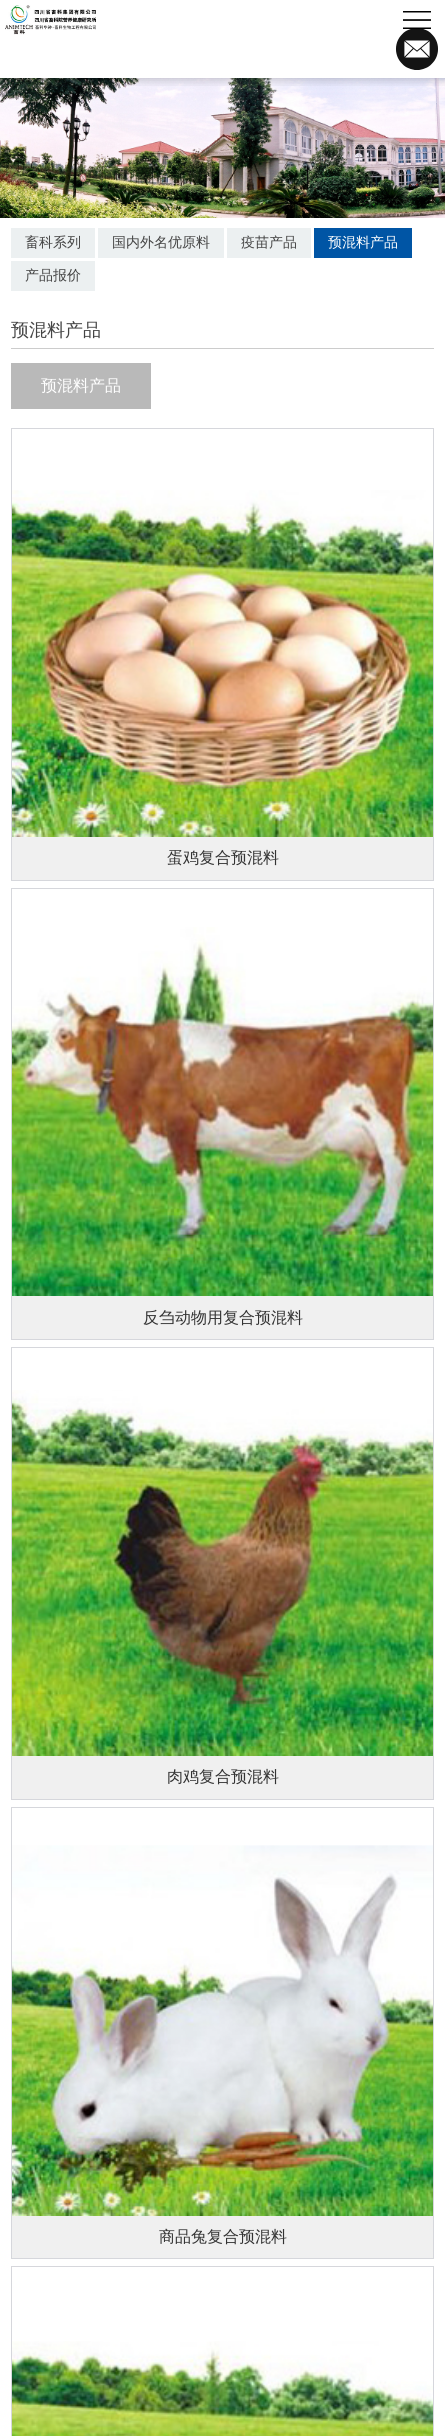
import math
import cairocffi as cairo

surface = cairo.ImageSurface(cairo.FORMAT_RGB24, 445, 2436)
cr = cairo.Context(surface)
options = cairo.FontOptions()
options.set_hint_metrics(cairo.HINT_METRICS_OFF)
options.set_hint_style(cairo.HINT_STYLE_NONE)
cr.set_font_options(options)
cr.set_miter_limit(4)


def use_color(code):
    cr.set_source_rgb(*(v / 255 for v in bytes.fromhex(code[-6:])))


def round_rect(x, y, w, h, r):
    cr.new_sub_path()
    for i, (u, v) in enumerate([(x + w - r, y + h - r), (x + r, y + h - r), (x + r, y + r), (x + w - r, y + r)]):
        cr.arc(u, v, r, i * math.pi / 2, (i + 1) * math.pi / 2)
    cr.close_path()


def shadow(x, y, w, h, r, blur, alpha):
    cr.push_group_with_content(cairo.CONTENT_ALPHA)
    cr.set_operator(cairo.OPERATOR_SOURCE)
    for i in range(15, -16, -2):
        e = blur * i / 6
        if min(w, h) + 2 * e > 0:
            cr.set_source_rgba(0, 0, 0, alpha * math.erfc((i - 1) / 8.5) / 2)
            round_rect(x - e, y - e, w + 2 * e, h + 2 * e, max(0, min(r + e + blur * .6, min(w, h) / 2 + e)))
            cr.fill()
    cr.mask(cr.pop_group())


def picture(path, x, y, w, h):
    cr.save()
    cr.set_source_surface(cairo.ImageSurface.create_from_png(path), x, y)
    cr.rectangle(x, y, w, h)
    cr.fill()
    cr.restore()


use_color("#ffffff")
cr.paint()
picture("img4.png", 0, 78, 445, 140)
cr.save()
cr.rectangle(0, 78, 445, 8)
cr.clip()
use_color("#000000")
shadow(-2, -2, 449, 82, 0, 5, 0.2)
cr.restore()
picture("img1.png", 5, 5, 91, 30)
picture("img2.png", 396, 29, 42, 41)
picture("img3.png", 403, 11, 28, 18)
use_color("#ecf0f1")
cr.rectangle(11, 228, 84, 30)
cr.fill()
cr.select_font_face("WenQuanYi Zen Hei Medium")
cr.set_font_size(14)
use_color("#444444")
cr.move_to(25, 247)
cr.show_text("畜科系列")
use_color("#ecf0f1")
cr.rectangle(98, 228, 126, 30)
cr.fill()
use_color("#444444")
cr.move_to(112, 247)
cr.show_text("国内外名优原料")
use_color("#ecf0f1")
cr.rectangle(227, 228, 84, 30)
cr.fill()
use_color("#444444")
cr.move_to(241, 247)
cr.show_text("疫苗产品")
use_color("#0055a5")
cr.rectangle(314, 228, 98, 30)
cr.fill()
use_color("#ffffff")
cr.move_to(328, 247)
cr.show_text("预混料产品")
use_color("#ecf0f1")
cr.rectangle(11, 261, 84, 30)
cr.fill()
use_color("#444444")
cr.move_to(25, 280)
cr.show_text("产品报价")
use_color("#cccccc")
cr.rectangle(11, 348, 423, 1)
cr.fill()
cr.set_font_size(18)
use_color("#444444")
cr.move_to(11, 336)
cr.show_text("预混料产品")
use_color("#b9b9b9")
cr.rectangle(11, 363, 140, 46)
cr.fill()
cr.set_font_size(16)
use_color("#ffffff")
cr.move_to(41, 391)
cr.show_text("预混料产品")
cr.rectangle(11.5, 428.5, 422, 452)
use_color("#d6d7dc")
cr.set_line_width(1)
cr.stroke()
picture("img5.png", 12, 490, 421, 347)
use_color("#f0f0f0")
cr.rectangle(12, 837, 421, 43)
cr.fill()
use_color("#333333")
cr.move_to(167, 863)
cr.show_text("蛋鸡复合预混料")
cr.rectangle(11.5, 888.5, 422, 451)
use_color("#d6d7dc")
cr.stroke()
picture("img6.png", 12, 927, 421, 369)
use_color("#f0f0f0")
cr.rectangle(12, 1296, 421, 43)
cr.fill()
use_color("#333333")
cr.move_to(143, 1323)
cr.show_text("反刍动物用复合预混料")
cr.rectangle(11.5, 1347.5, 422, 452)
use_color("#d6d7dc")
cr.stroke()
picture("img7.png", 12, 1390, 421, 366)
use_color("#f0f0f0")
cr.rectangle(12, 1756, 421, 43)
cr.fill()
use_color("#333333")
cr.move_to(167, 1782)
cr.show_text("肉鸡复合预混料")
cr.rectangle(11.5, 1807.5, 422, 451)
use_color("#d6d7dc")
cr.stroke()
picture("img8.png", 12, 1845, 421, 371)
use_color("#f0f0f0")
cr.rectangle(12, 2216, 421, 42)
cr.fill()
use_color("#333333")
cr.move_to(159, 2242)
cr.show_text("商品兔复合预混料")
cr.rectangle(11.5, 2266.5, 422, 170)
use_color("#d6d7dc")
cr.stroke()
picture("img9.png", 12, 2341, 421, 95)
surface.write_to_png("result.png")
